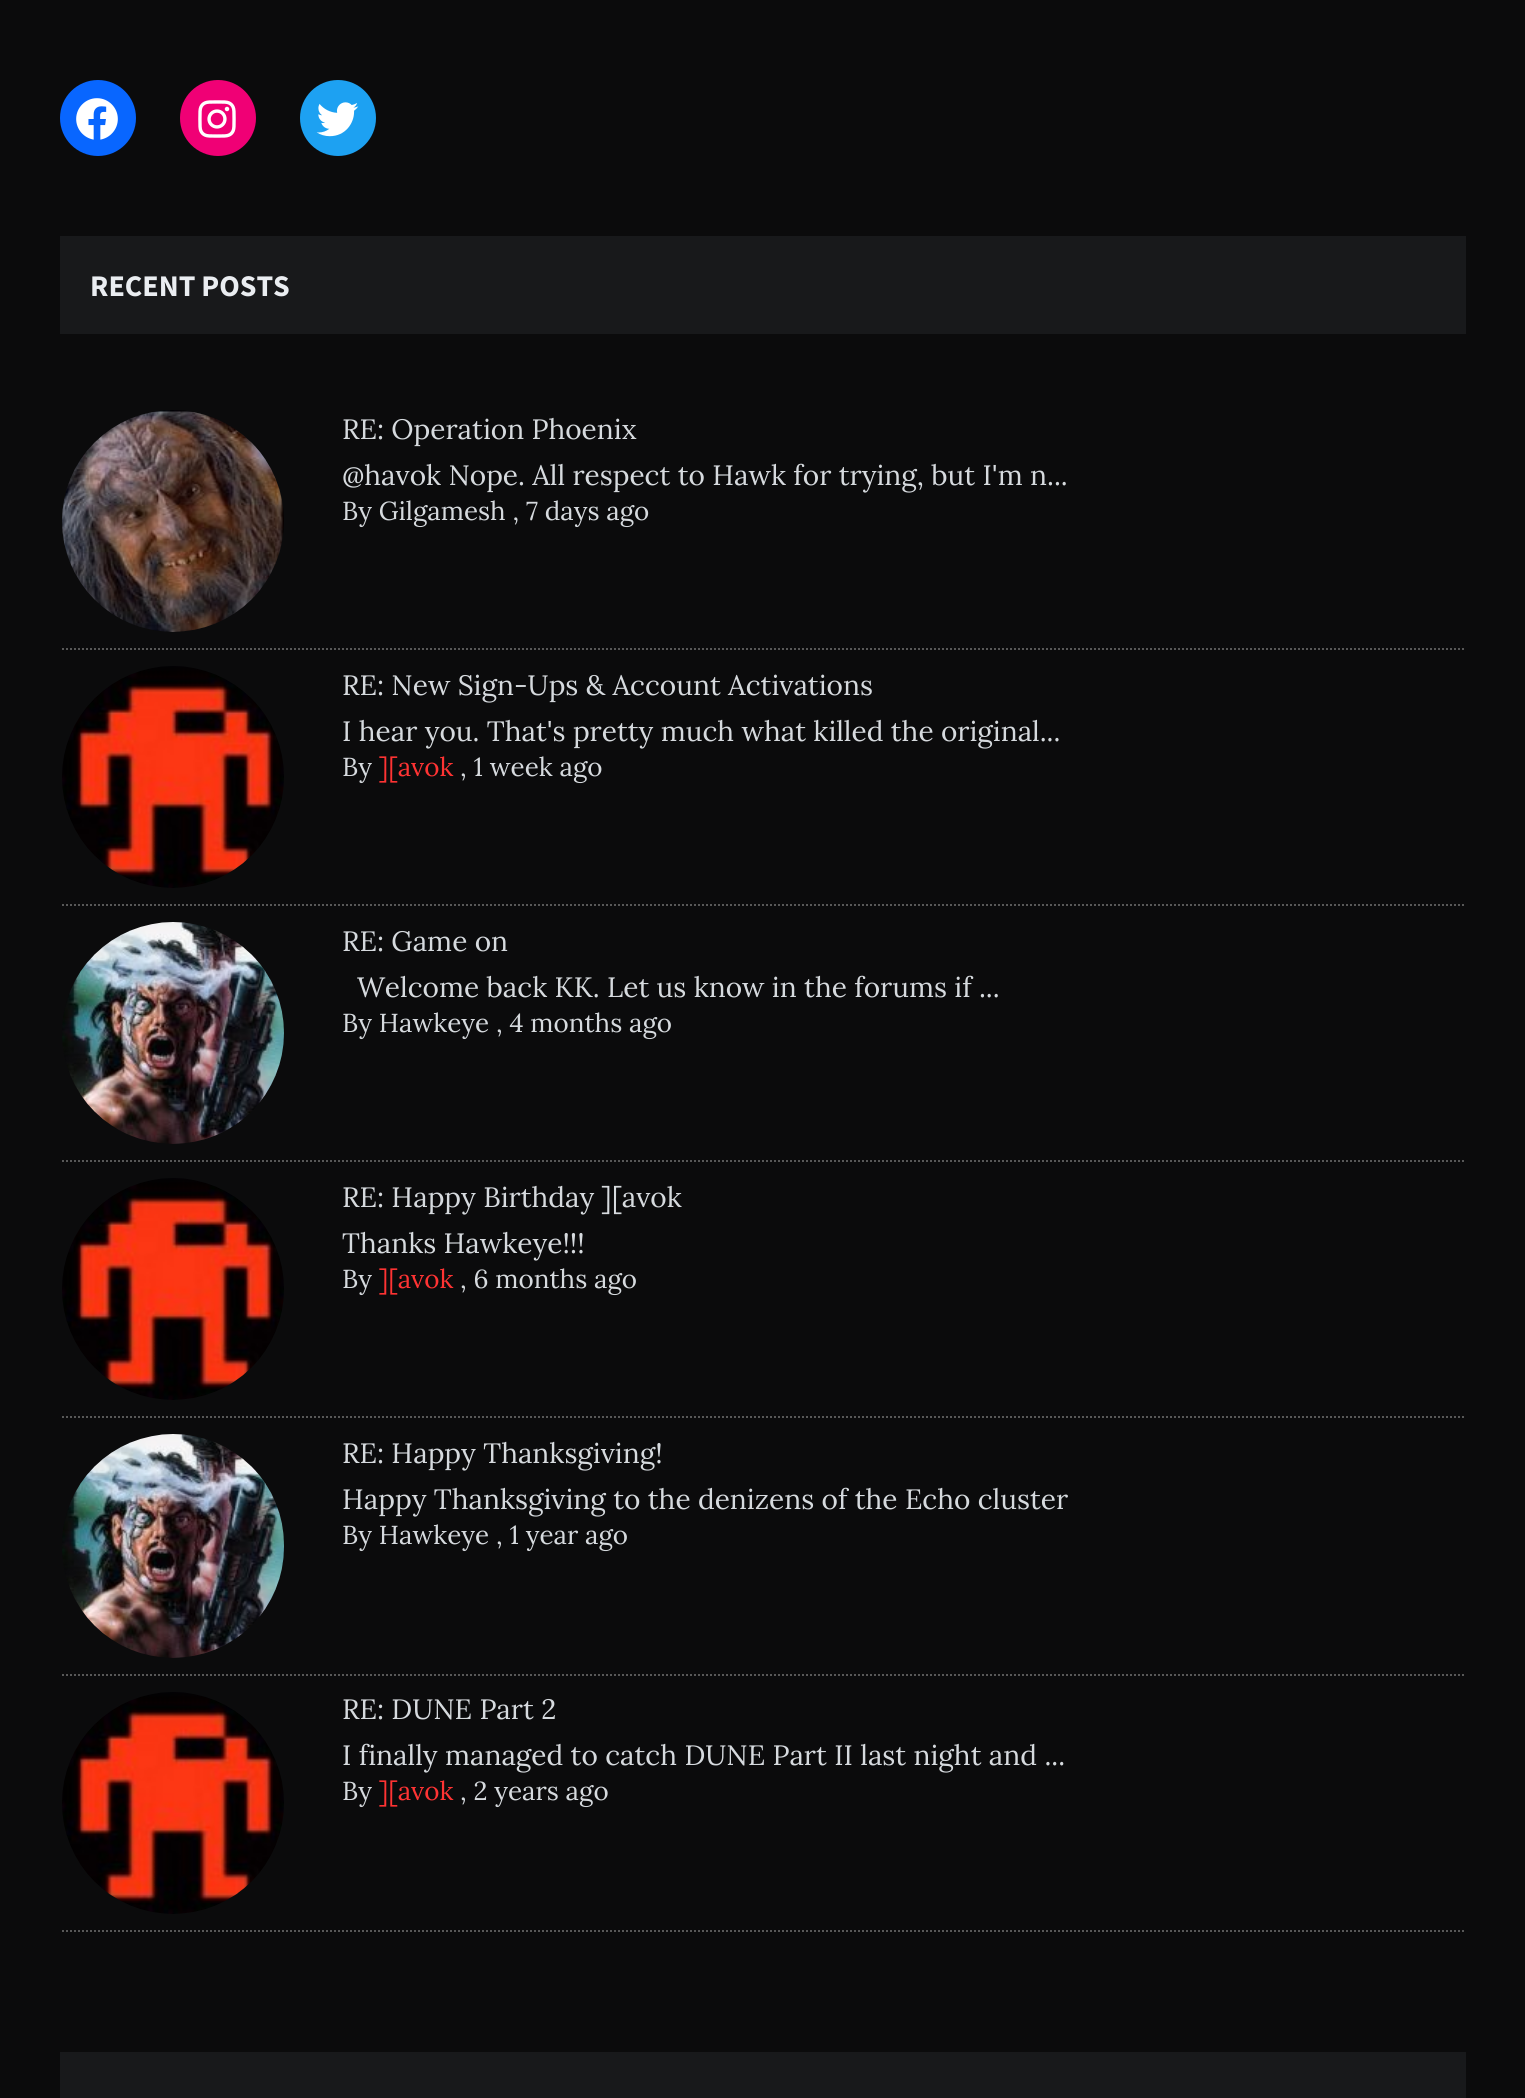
import math
import cairocffi as cairo

surface = cairo.ImageSurface(cairo.FORMAT_RGB24, 1525, 2098)
cr = cairo.Context(surface)
options = cairo.FontOptions()
options.set_hint_metrics(cairo.HINT_METRICS_OFF)
options.set_hint_style(cairo.HINT_STYLE_NONE)
cr.set_font_options(options)
cr.set_miter_limit(4)


def use_color(code):
    cr.set_source_rgb(*(v / 255 for v in bytes.fromhex(code[-6:])))


def picture(path, x, y, w, h):
    cr.save()
    cr.set_source_surface(cairo.ImageSurface.create_from_png(path), x, y)
    cr.rectangle(x, y, w, h)
    cr.fill()
    cr.restore()


use_color("#0b0b0c")
cr.paint()
use_color("#0866ff")
cr.arc(98, 118, 38, 0, 2 * math.pi)
cr.fill()
picture("img1.png", 76, 98, 42, 42)
use_color("#f00075")
cr.arc(218, 118, 38, 0, 2 * math.pi)
cr.fill()
picture("img2.png", 198, 100, 38, 38)
use_color("#1da1f2")
cr.arc(338, 118, 38, 0, 2 * math.pi)
cr.fill()
picture("img3.png", 316, 102, 43, 35)
use_color("#18191b")
cr.rectangle(60, 236, 1406, 98)
cr.fill()
cr.select_font_face("Source Sans Pro", cairo.FONT_SLANT_NORMAL, cairo.FONT_WEIGHT_BOLD)
cr.set_font_size(30)
use_color("#eaedf1")
cr.move_to(90, 296)
cr.show_text("RECENT POSTS")
cr.new_path()
cr.move_to(62, 649)
cr.line_to(1464, 649)
use_color("#585858")
cr.set_dash([2, 2])
cr.stroke()
picture("img4.png", 62, 410, 222, 222)
cr.select_font_face("Lora")
cr.set_font_size(28)
use_color("#d6dade")
cr.move_to(342, 439)
cr.show_text("RE: Operation Phoenix")
cr.move_to(342, 485)
cr.show_text("@havok Nope. All respect to Hawk for trying, but I'm n...")
cr.set_font_size(26)
cr.move_to(342, 520)
cr.show_text("By Gilgamesh , 7 days ago")
cr.new_path()
cr.move_to(62, 905)
cr.line_to(1464, 905)
use_color("#585858")
cr.stroke()
picture("img5.png", 62, 666, 222, 222)
cr.set_font_size(28)
use_color("#d6dade")
cr.move_to(342, 695)
cr.show_text("RE: New Sign-Ups & Account Activations")
cr.move_to(342, 741)
cr.show_text("I hear you. That's pretty much what killed the original...")
cr.set_font_size(26)
cr.move_to(342, 776)
cr.show_text("By")
use_color("#ff3333")
cr.move_to(379, 776)
cr.show_text("][avok")
use_color("#d6dade")
cr.move_to(460, 776)
cr.show_text(", 1 week ago")
cr.new_path()
cr.move_to(62, 1161)
cr.line_to(1464, 1161)
use_color("#585858")
cr.stroke()
picture("img6.png", 62, 922, 222, 222)
cr.set_font_size(28)
use_color("#d6dade")
cr.move_to(342, 951)
cr.show_text("RE: Game on")
cr.move_to(357, 997)
cr.show_text("Welcome back KK. Let us know in the forums if ...")
cr.set_font_size(26)
cr.move_to(342, 1032)
cr.show_text("By Hawkeye , 4 months ago")
cr.new_path()
cr.move_to(62, 1417)
cr.line_to(1464, 1417)
use_color("#585858")
cr.stroke()
picture("img7.png", 62, 1178, 222, 222)
cr.set_font_size(28)
use_color("#d6dade")
cr.move_to(342, 1207)
cr.show_text("RE: Happy Birthday ][avok")
cr.move_to(342, 1253)
cr.show_text("Thanks Hawkeye!!!")
cr.set_font_size(26)
cr.move_to(342, 1288)
cr.show_text("By")
use_color("#ff3333")
cr.move_to(379, 1288)
cr.show_text("][avok")
use_color("#d6dade")
cr.move_to(460, 1288)
cr.show_text(", 6 months ago")
cr.new_path()
cr.move_to(62, 1675)
cr.line_to(1464, 1675)
use_color("#585858")
cr.stroke()
picture("img8.png", 62, 1434, 222, 224)
cr.set_font_size(28)
use_color("#d6dade")
cr.move_to(342, 1463)
cr.show_text("RE: Happy Thanksgiving!")
cr.move_to(342, 1509)
cr.show_text("Happy Thanksgiving to the denizens of the Echo cluster")
cr.set_font_size(26)
cr.move_to(342, 1544)
cr.show_text("By Hawkeye , 1 year ago")
cr.new_path()
cr.move_to(62, 1931)
cr.line_to(1464, 1931)
use_color("#585858")
cr.stroke()
picture("img9.png", 62, 1692, 222, 222)
cr.set_font_size(28)
use_color("#d6dade")
cr.move_to(342, 1719)
cr.show_text("RE: DUNE Part 2")
cr.move_to(342, 1765)
cr.show_text("I finally managed to catch DUNE Part II last night and ...")
cr.set_font_size(26)
cr.move_to(342, 1800)
cr.show_text("By")
use_color("#ff3333")
cr.move_to(379, 1800)
cr.show_text("][avok")
use_color("#d6dade")
cr.move_to(460, 1800)
cr.show_text(", 2 years ago")
use_color("#18191b")
cr.rectangle(60, 2052, 1406, 46)
cr.fill()
surface.write_to_png("result.png")
